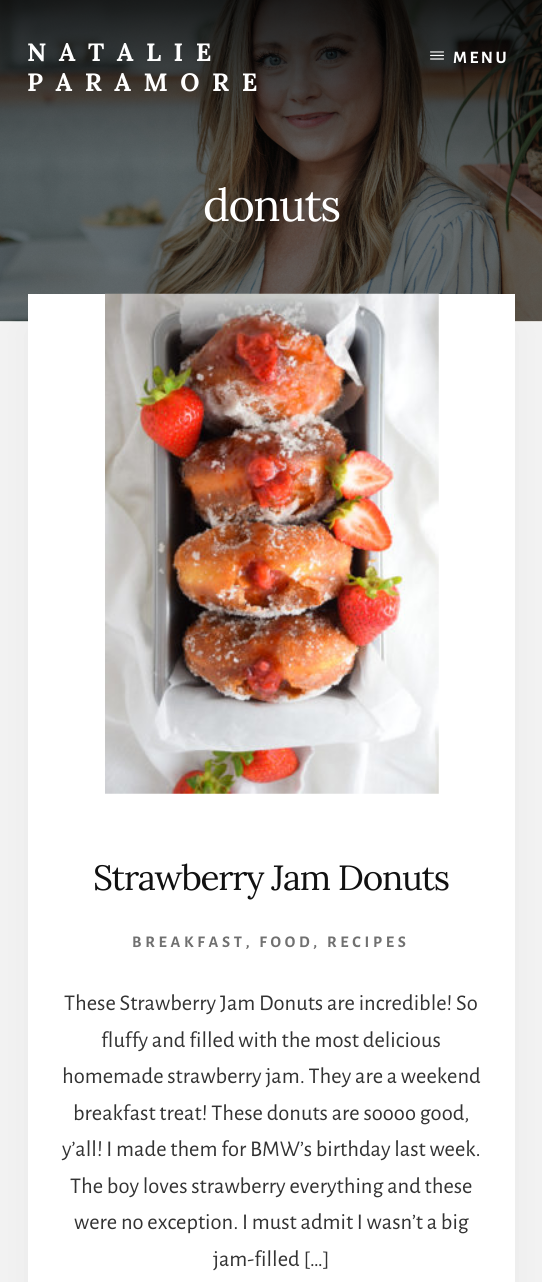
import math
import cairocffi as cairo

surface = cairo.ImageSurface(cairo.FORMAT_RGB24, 542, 1282)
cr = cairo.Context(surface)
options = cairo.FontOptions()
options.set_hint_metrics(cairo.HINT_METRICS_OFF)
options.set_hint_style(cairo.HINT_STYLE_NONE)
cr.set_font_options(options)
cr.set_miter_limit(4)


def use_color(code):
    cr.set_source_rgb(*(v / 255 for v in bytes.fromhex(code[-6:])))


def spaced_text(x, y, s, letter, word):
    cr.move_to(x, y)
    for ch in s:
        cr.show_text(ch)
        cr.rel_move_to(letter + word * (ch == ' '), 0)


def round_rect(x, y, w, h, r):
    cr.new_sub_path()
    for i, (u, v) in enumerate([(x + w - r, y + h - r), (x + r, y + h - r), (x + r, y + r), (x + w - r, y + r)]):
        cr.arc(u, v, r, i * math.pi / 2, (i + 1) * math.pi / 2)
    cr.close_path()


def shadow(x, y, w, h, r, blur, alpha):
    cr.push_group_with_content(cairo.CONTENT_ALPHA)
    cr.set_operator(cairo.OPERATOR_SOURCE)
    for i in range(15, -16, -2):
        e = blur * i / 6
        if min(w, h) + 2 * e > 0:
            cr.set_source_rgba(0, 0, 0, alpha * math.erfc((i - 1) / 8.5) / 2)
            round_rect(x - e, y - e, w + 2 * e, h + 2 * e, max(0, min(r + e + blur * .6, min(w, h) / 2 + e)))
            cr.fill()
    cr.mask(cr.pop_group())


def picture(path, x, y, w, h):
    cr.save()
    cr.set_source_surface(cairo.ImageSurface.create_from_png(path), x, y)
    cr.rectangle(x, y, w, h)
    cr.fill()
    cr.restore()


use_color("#f4f4f4")
cr.paint()
picture("img1.png", 0, 0, 542, 322)
cr.select_font_face("Lora", cairo.FONT_SLANT_NORMAL, cairo.FONT_WEIGHT_BOLD)
cr.set_font_size(25)
use_color("#ffffff")
spaced_text(27, 61, "NATALIE", 12.5, 0)
spaced_text(27, 91, "PARAMORE", 12.5, 0)
picture("img2.png", 430, 51, 14, 9)
cr.select_font_face("Alegreya Sans", cairo.FONT_SLANT_NORMAL, cairo.FONT_WEIGHT_BOLD)
cr.set_font_size(17.5)
spaced_text(453, 63, "MENU", 2.5, 0)
cr.select_font_face("Lora")
cr.set_font_size(45)
spaced_text(203, 221, "donuts", -1.5, 0)
use_color("#000000")
shadow(28, 325, 487, 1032, 0, 25, 0.05)
use_color("#ffffff")
cr.rectangle(28, 294, 487, 988)
cr.fill()
picture("img3.png", 105, 293, 334, 501)
cr.set_font_size(35)
use_color("#111111")
spaced_text(93, 890, "Strawberry Jam Donuts", -1.25, 0)
cr.select_font_face("Alegreya Sans", cairo.FONT_SLANT_NORMAL, cairo.FONT_WEIGHT_BOLD)
cr.set_font_size(16.25)
use_color("#707070")
spaced_text(132, 947, "BREAKFAST, FOOD, RECIPES", 3.75, 0)
cr.select_font_face("Alegreya Sans")
cr.set_font_size(22.5)
use_color("#333333")
cr.move_to(64, 1010)
cr.show_text("These Strawberry Jam Donuts are incredible! So")
cr.move_to(101, 1047)
cr.show_text("fluffy and filled with the most delicious")
cr.move_to(62, 1083)
cr.show_text("homemade strawberry jam. They are a weekend")
cr.move_to(73, 1120)
cr.show_text("breakfast treat! These donuts are soooo good,")
cr.move_to(62, 1156)
cr.show_text("y’all! I made them for BMW’s birthday last week.")
cr.move_to(70, 1193)
cr.show_text("The boy loves strawberry everything and these")
cr.move_to(74, 1229)
cr.show_text("were no exception. I must admit I wasn’t a big")
cr.move_to(213, 1266)
cr.show_text("jam-filled […]")
surface.write_to_png("result.png")
